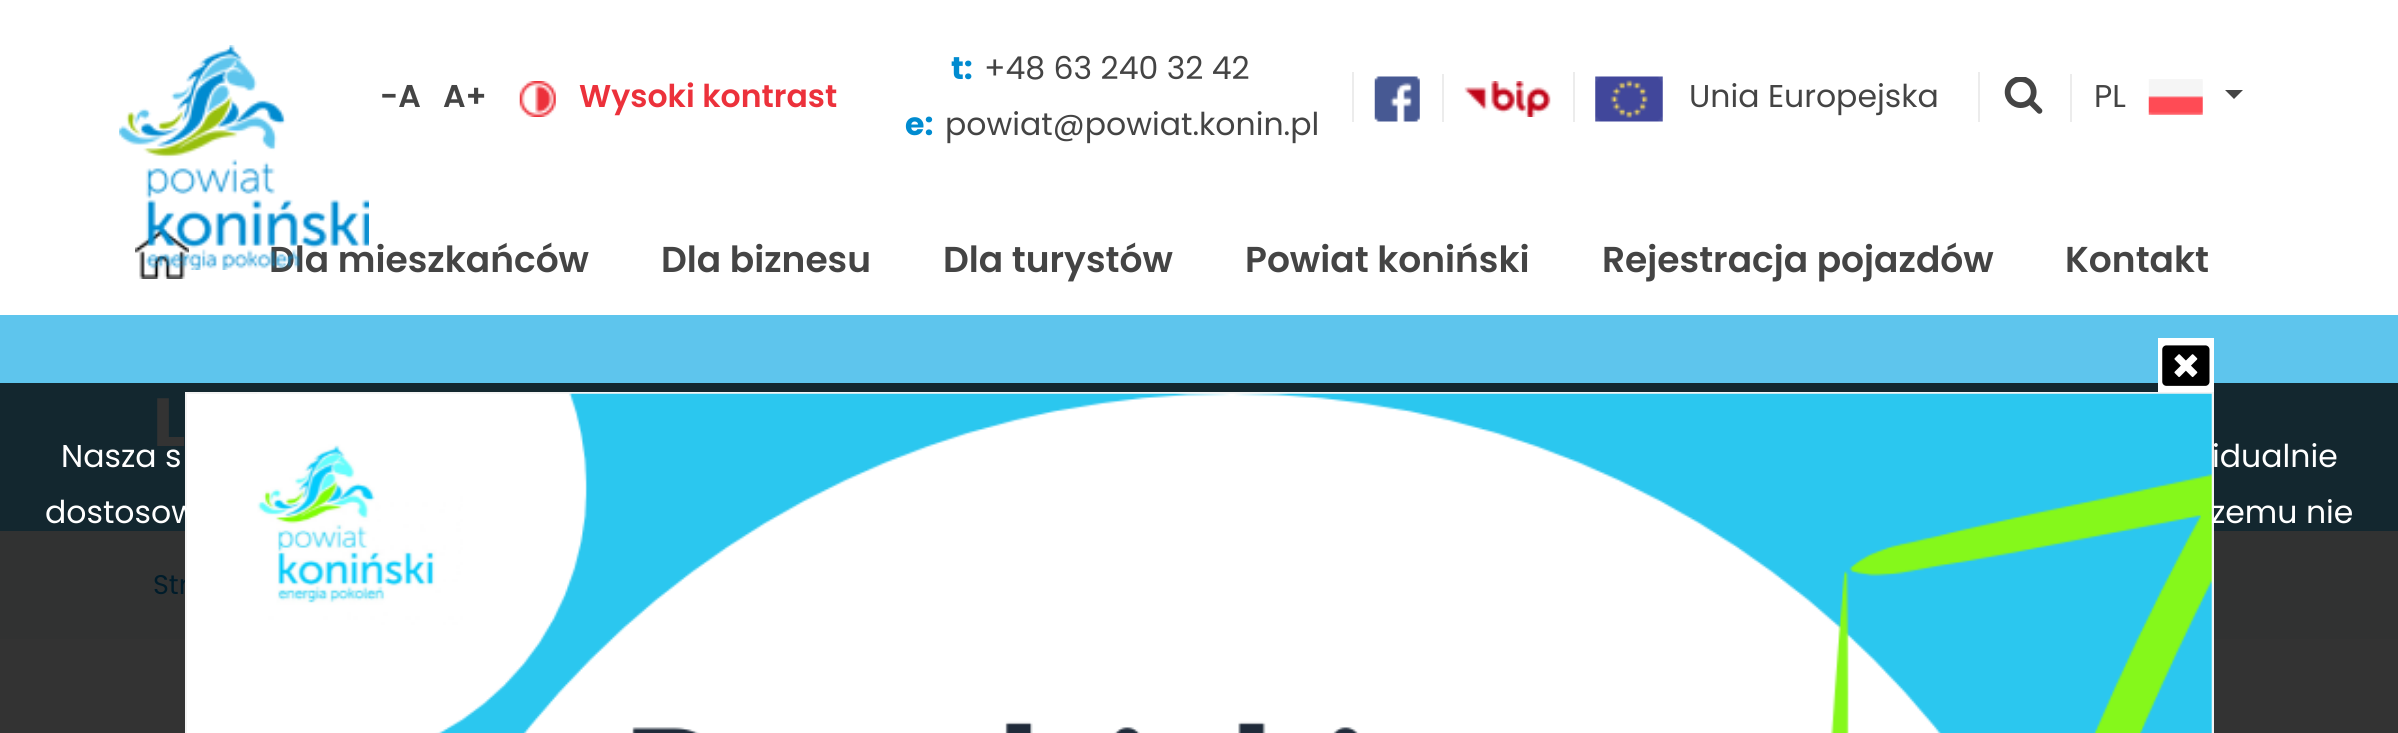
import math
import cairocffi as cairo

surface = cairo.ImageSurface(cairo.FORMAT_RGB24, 2398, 733)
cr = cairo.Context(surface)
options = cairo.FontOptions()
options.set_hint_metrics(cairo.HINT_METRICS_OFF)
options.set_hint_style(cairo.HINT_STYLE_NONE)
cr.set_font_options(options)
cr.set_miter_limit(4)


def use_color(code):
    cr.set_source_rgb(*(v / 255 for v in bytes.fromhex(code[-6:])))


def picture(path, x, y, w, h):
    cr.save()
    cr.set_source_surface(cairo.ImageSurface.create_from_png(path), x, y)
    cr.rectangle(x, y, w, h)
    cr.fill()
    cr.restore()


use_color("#ffffff")
cr.paint()
use_color("#333333")
cr.rectangle(0, 639, 2398, 94)
cr.fill()
picture("img8.png", 135, 229, 54, 50)
cr.select_font_face("Poppins SemiBold")
cr.set_font_size(36)
use_color("#444444")
cr.move_to(269, 272)
cr.show_text("Dla mieszkańców")
picture("img1.png", 119, 45, 250, 225)
cr.set_font_size(31.5)
cr.move_to(380, 107)
cr.show_text("-A")
cr.move_to(443, 107)
cr.show_text("A+")
picture("img2.png", 519, 81, 37, 36)
use_color("#ec313b")
cr.move_to(579, 107)
cr.show_text("Wysoki kontrast")
cr.select_font_face("Poppins", cairo.FONT_SLANT_NORMAL, cairo.FONT_WEIGHT_BOLD)
use_color("#008bd0")
cr.move_to(951, 79)
cr.show_text("t:")
cr.select_font_face("Poppins")
use_color("#444444")
cr.move_to(984, 79)
cr.show_text("+48 63 240 32 42")
cr.select_font_face("Poppins", cairo.FONT_SLANT_NORMAL, cairo.FONT_WEIGHT_BOLD)
use_color("#008bd0")
cr.move_to(905, 135)
cr.show_text("e:")
cr.select_font_face("Poppins")
use_color("#444444")
cr.move_to(945, 135)
cr.show_text("powiat@powiat.konin.pl")
use_color("#ececec")
cr.rectangle(1352, 72, 2, 50)
cr.fill()
picture("img3.png", 1374, 76, 46, 46)
cr.rectangle(1442, 74, 2, 48)
cr.fill()
picture("img4.png", 1464, 81, 87, 36)
cr.rectangle(1573, 72, 2, 50)
cr.fill()
picture("img5.png", 1595, 76, 68, 46)
use_color("#444444")
cr.move_to(1689, 107)
cr.show_text("Unia Europejska")
use_color("#ececec")
cr.rectangle(1978, 72, 2, 50)
cr.fill()
picture("img6.png", 2004, 77, 39, 37)
cr.rectangle(2070, 74, 2, 48)
cr.fill()
use_color("#444444")
cr.move_to(2094, 107)
cr.show_text("PL")
picture("img7.png", 2148, 79, 55, 36)
cr.new_path()
cr.move_to(2225, 90)
cr.line_to(2243, 90)
cr.line_to(2234, 99)
cr.close_path()
cr.fill()
cr.select_font_face("Poppins SemiBold")
cr.set_font_size(36)
cr.move_to(661, 272)
cr.show_text("Dla biznesu")
cr.move_to(943, 272)
cr.show_text("Dla turystów")
cr.move_to(1245, 272)
cr.show_text("Powiat koniński")
cr.move_to(1602, 272)
cr.show_text("Rejestracja pojazdów")
cr.move_to(2065, 272)
cr.show_text("Kontakt")
use_color("#5ec5ed")
cr.rectangle(0, 315, 2398, 68)
cr.fill()
use_color("#13272f")
cr.rectangle(0, 383, 2398, 148)
cr.fill()
cr.select_font_face("Poppins", cairo.FONT_SLANT_NORMAL, cairo.FONT_WEIGHT_BOLD)
cr.set_font_size(68)
use_color("#333333")
cr.move_to(153, 446)
cr.show_text("L")
use_color("#ffffff")
cr.rectangle(2158, 338, 56, 54)
cr.fill()
picture("img9.png", 2162, 345, 48, 41)
use_color("#313232")
cr.rectangle(0, 531, 2398, 108)
cr.fill()
cr.select_font_face("Poppins")
cr.set_font_size(27)
use_color("#001c2a")
cr.move_to(153, 594)
cr.show_text("Str")
use_color("#ffffff")
cr.rectangle(186, 393, 2027, 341)
cr.fill_preserve()
use_color("#f3f3f3")
cr.stroke()
cr.set_font_size(31.5)
use_color("#ffffff")
cr.move_to(2211, 523)
cr.show_text("zemu nie")
picture("img10.png", 257, 393, 1955, 340)
cr.move_to(61, 467)
cr.show_text("Nasza s")
cr.move_to(2212, 467)
cr.show_text("idualnie")
cr.move_to(45, 523)
cr.show_text("dostosow")
surface.write_to_png("result.png")
